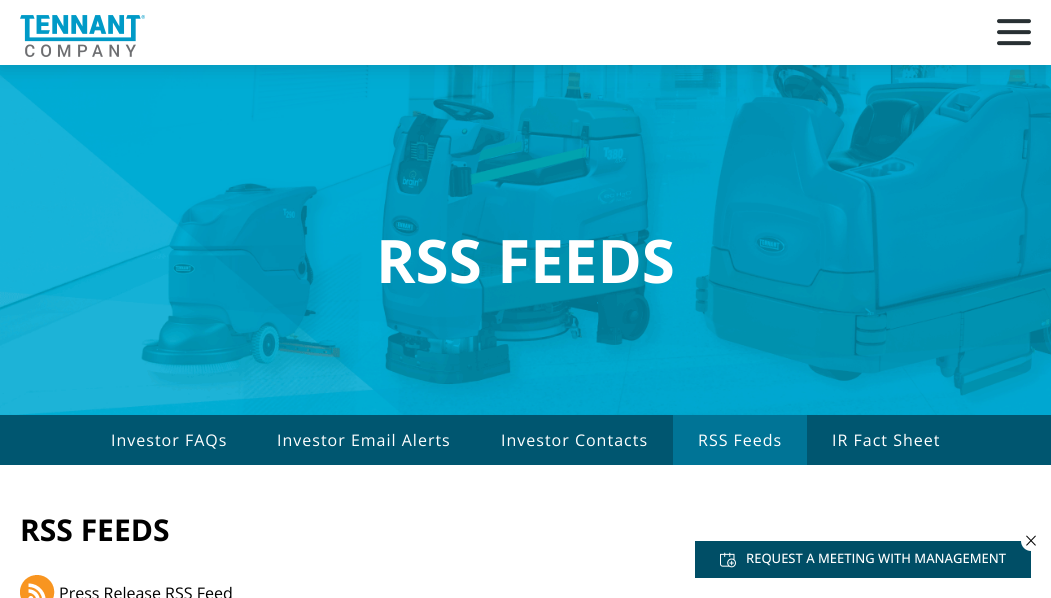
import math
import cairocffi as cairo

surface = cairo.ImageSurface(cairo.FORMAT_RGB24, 1051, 598)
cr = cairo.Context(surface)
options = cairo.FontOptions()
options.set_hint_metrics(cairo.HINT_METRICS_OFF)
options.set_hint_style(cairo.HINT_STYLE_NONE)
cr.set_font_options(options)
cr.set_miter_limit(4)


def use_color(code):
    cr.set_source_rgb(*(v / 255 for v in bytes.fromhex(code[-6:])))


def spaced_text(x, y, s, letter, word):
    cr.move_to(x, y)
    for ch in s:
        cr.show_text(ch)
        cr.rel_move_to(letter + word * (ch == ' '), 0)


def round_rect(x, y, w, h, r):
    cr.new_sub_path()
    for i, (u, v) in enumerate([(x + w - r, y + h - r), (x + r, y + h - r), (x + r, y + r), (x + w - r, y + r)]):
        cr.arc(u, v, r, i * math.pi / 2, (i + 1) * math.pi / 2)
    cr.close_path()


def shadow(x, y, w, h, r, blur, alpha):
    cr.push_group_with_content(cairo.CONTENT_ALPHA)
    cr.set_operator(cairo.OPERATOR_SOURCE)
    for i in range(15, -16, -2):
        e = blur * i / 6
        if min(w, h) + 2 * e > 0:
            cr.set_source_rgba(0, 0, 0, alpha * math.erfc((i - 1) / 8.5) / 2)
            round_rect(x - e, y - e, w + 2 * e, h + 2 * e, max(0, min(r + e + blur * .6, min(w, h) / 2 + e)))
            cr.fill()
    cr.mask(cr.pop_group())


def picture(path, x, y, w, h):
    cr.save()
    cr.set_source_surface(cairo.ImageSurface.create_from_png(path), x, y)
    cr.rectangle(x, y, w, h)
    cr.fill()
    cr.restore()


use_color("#ffffff")
cr.paint()
picture("img3.png", 0, 65, 1051, 350)
use_color("#283033")
shadow(0, 2, 1051, 65, 0, 10, 0.2)
use_color("#ffffff")
cr.rectangle(0, 0, 1051, 65)
cr.fill()
picture("img1.png", 20, 15, 125, 42)
picture("img2.png", 997, 19, 34, 27)
cr.select_font_face("Open Sans", cairo.FONT_SLANT_NORMAL, cairo.FONT_WEIGHT_BOLD)
cr.set_font_size(60)
cr.move_to(376, 283)
cr.show_text("RSS FEEDS")
use_color("#005670")
cr.rectangle(0, 415, 1051, 50)
cr.fill()
cr.select_font_face("Open Sans")
cr.set_font_size(16)
use_color("#ffffff")
spaced_text(111, 446, "Investor FAQs", 1, 0)
spaced_text(277, 446, "Investor Email Alerts", 1, 0)
spaced_text(501, 446, "Investor Contacts", 1, 0)
use_color("#007496")
cr.rectangle(673, 415, 134, 50)
cr.fill()
use_color("#ffffff")
spaced_text(698, 446, "RSS Feeds", 1, 0)
spaced_text(832, 446, "IR Fact Sheet", 1, 0)
cr.select_font_face("Open Sans", cairo.FONT_SLANT_NORMAL, cairo.FONT_WEIGHT_BOLD)
cr.set_font_size(30)
use_color("#000000")
cr.move_to(20, 541)
cr.show_text("RSS FEEDS")
picture("img4.png", 20, 575, 35, 23)
cr.select_font_face("Open Sans")
cr.set_font_size(16)
cr.move_to(59, 599)
cr.show_text("Press Release RSS Feed")
use_color("#004e66")
cr.rectangle(695, 541, 336, 37)
cr.fill()
use_color("#ffffff")
cr.arc(1031, 541, 10, 0, 2 * math.pi)
cr.fill()
picture("img5.png", 1026, 535, 10, 11)
picture("img6.png", 720, 552, 16, 16)
cr.select_font_face("Open Sans Medium")
cr.set_font_size(13)
cr.move_to(746, 563)
cr.show_text("REQUEST A MEETING WITH MANAGEMENT")
surface.write_to_png("result.png")
